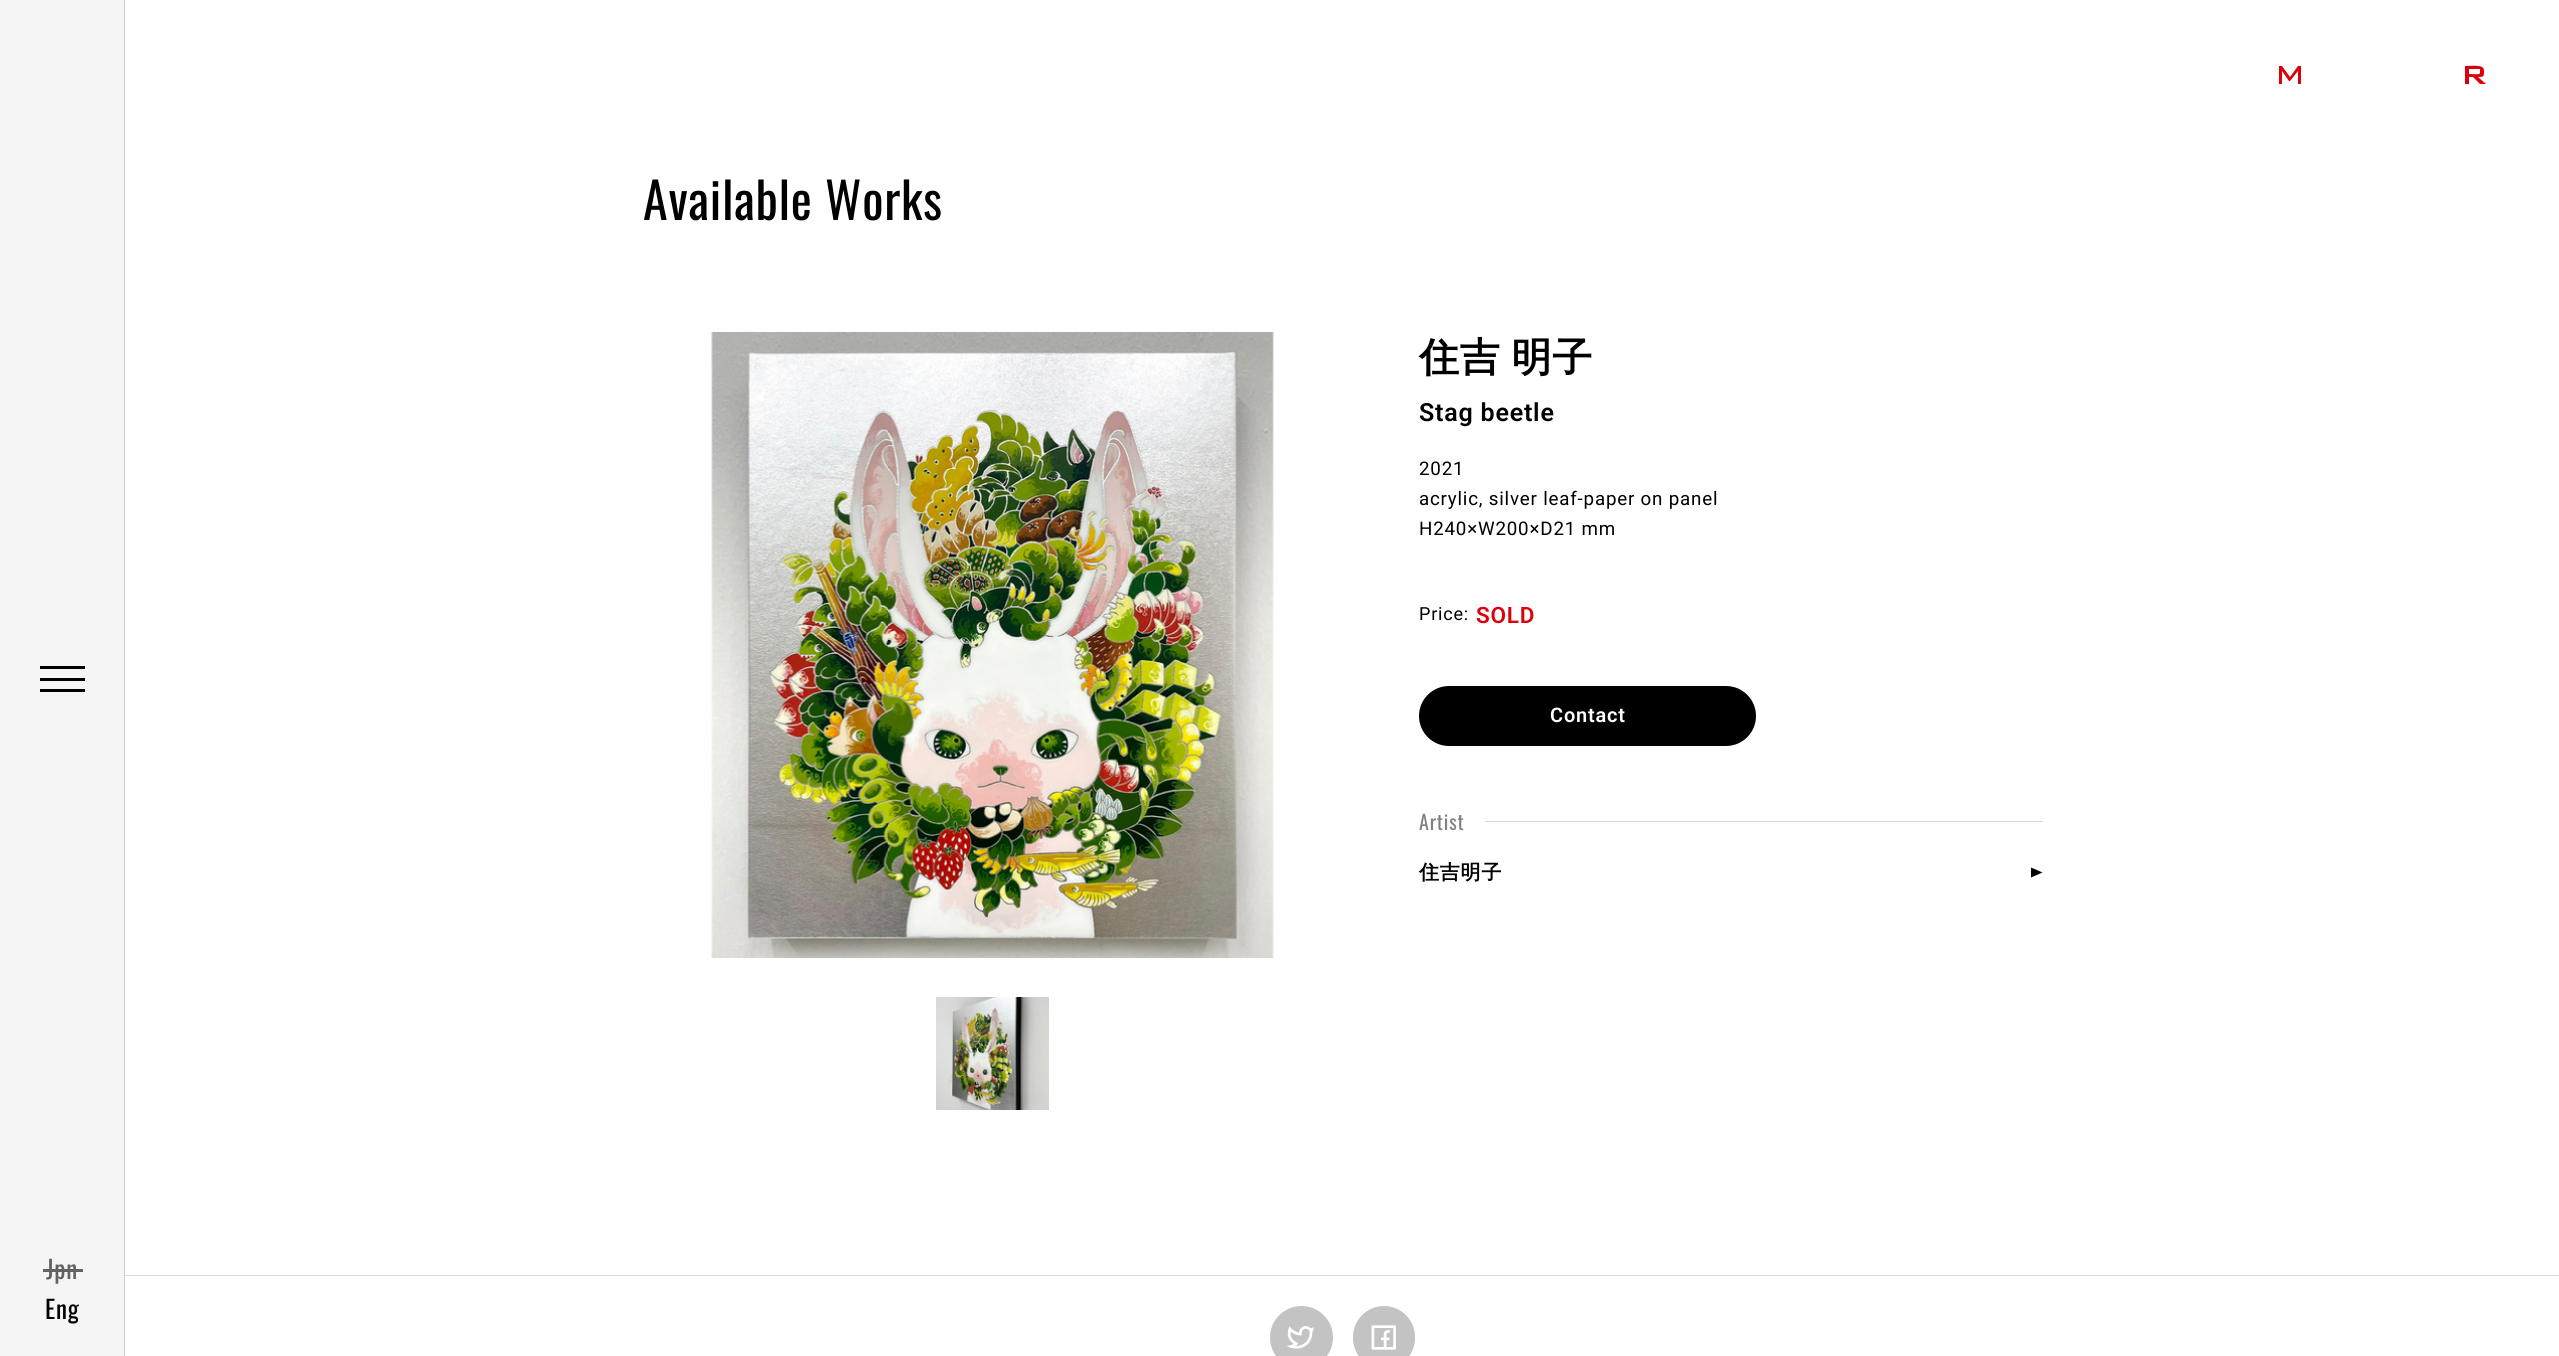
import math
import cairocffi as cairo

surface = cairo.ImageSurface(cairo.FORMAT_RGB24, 2559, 1356)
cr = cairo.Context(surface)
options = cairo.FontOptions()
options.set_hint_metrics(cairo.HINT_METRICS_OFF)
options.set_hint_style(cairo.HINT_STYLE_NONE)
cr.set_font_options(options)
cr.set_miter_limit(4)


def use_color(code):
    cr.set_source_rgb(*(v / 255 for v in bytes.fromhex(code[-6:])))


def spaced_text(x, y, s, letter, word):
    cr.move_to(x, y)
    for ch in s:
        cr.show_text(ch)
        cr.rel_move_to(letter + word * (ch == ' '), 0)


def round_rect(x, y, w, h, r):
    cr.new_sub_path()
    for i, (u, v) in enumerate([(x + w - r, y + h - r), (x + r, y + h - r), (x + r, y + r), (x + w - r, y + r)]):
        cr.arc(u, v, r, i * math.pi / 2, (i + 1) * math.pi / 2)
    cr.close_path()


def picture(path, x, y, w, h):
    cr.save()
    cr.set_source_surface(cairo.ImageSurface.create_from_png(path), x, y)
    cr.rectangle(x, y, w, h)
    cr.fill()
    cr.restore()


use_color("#ffffff")
cr.paint()
cr.select_font_face("Oswald")
cr.set_font_size(50)
use_color("#000000")
spaced_text(643, 220, "Available Works", 0.8, 0)
picture("img1.png", 711, 332, 563, 626)
picture("img2.png", 936, 997, 113, 113)
cr.select_font_face("WenQuanYi Zen Hei", cairo.FONT_SLANT_NORMAL, cairo.FONT_WEIGHT_BOLD)
cr.set_font_size(40)
spaced_text(1419, 371, "住吉 明子", 0.8, -2)
cr.select_font_face("Roboto SemiBold")
cr.set_font_size(25)
spaced_text(1419, 421, "Stag beetle", 0.8, 0)
cr.select_font_face("Roboto")
cr.set_font_size(18.75)
spaced_text(1419, 475, "2021", 0.8, 0)
spaced_text(1419, 505, "acrylic, silver leaf-paper on panel", 0.8, 0)
spaced_text(1419, 535, "H240×W200×D21 mm", 0.8, 0)
cr.set_font_size(18)
spaced_text(1419, 620, "Price:", 0.8, 0)
cr.select_font_face("Roboto SemiBold")
cr.set_font_size(22.5)
use_color("#dc000c")
spaced_text(1476, 623, "SOLD", 0.8, 0)
use_color("#000000")
round_rect(1419, 686, 337, 60, 30)
cr.fill()
cr.set_font_size(20)
use_color("#ffffff")
spaced_text(1550, 722, "Contact", 0.8, 0)
cr.select_font_face("Oswald")
use_color("#808080")
spaced_text(1419, 830, "Artist", 0.8, 0)
use_color("#d9d9d9")
cr.rectangle(1485, 821, 558, 1)
cr.fill()
cr.select_font_face("WenQuanYi Zen Hei", cairo.FONT_SLANT_NORMAL, cairo.FONT_WEIGHT_BOLD)
use_color("#000000")
spaced_text(1419, 879, "住吉明子", 0.8, 0)
cr.new_path()
cr.move_to(2042.5, 872.5)
cr.line_to(2031, 877.5)
cr.line_to(2031, 867.5)
cr.close_path()
cr.fill()
use_color("#d9d9d9")
cr.rectangle(125, 1275, 2434, 1)
cr.fill()
use_color("#c3c3c3")
cr.arc(1301.5, 1337.5, 31.5, 0, 2 * math.pi)
cr.fill()
picture("img3.png", 1287, 1326, 27, 23)
round_rect(1353, 1306, 62, 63, 31)
cr.fill()
picture("img4.png", 1371, 1325, 25, 25)
use_color("#dc000c")
cr.new_path()
cr.move_to(2465, 84)
cr.line_to(2465, 66)
cr.curve_to(2469, 66, 2479, 65, 2482, 67)
cr.curve_to(2484, 68, 2484, 70, 2484, 72)
cr.curve_to(2484, 77, 2483, 77, 2478, 77)
cr.line_to(2486, 84)
cr.line_to(2480, 84)
cr.line_to(2473, 77)
cr.line_to(2469, 77)
cr.line_to(2469, 84)
cr.line_to(2465, 84)
cr.move_to(2478, 69)
cr.line_to(2469, 69)
cr.line_to(2469, 74)
cr.line_to(2471, 74)
cr.curve_to(2472, 74, 2480, 75, 2480, 73)
cr.line_to(2480, 69)
cr.close_path()
cr.move_to(2279, 84)
cr.line_to(2279, 66)
cr.line_to(2282, 66)
cr.line_to(2290, 77)
cr.line_to(2298, 66)
cr.line_to(2301, 66)
cr.line_to(2301, 84)
cr.line_to(2298, 84)
cr.line_to(2298, 71)
cr.line_to(2290, 81)
cr.line_to(2289, 81)
cr.line_to(2282, 71)
cr.line_to(2282, 84)
cr.close_path()
cr.fill()
use_color("#f5f5f5")
cr.rectangle(0, 0, 124, 1356)
cr.fill()
use_color("#000000")
cr.rectangle(40, 666, 45, 3)
cr.fill()
cr.rectangle(40, 678, 45, 3)
cr.fill()
cr.rectangle(40, 689, 45, 3)
cr.fill()
use_color("#d0d0d0")
cr.rectangle(124, 0, 1, 1356)
cr.fill()
cr.select_font_face("Oswald")
cr.set_font_size(25)
use_color("#626262")
spaced_text(46, 1279, "Jpn", 0.8, 0)
cr.rectangle(43, 1269, 40, 3)
cr.fill()
use_color("#000000")
spaced_text(45, 1319, "Eng", 0.8, 0)
surface.write_to_png("result.png")
